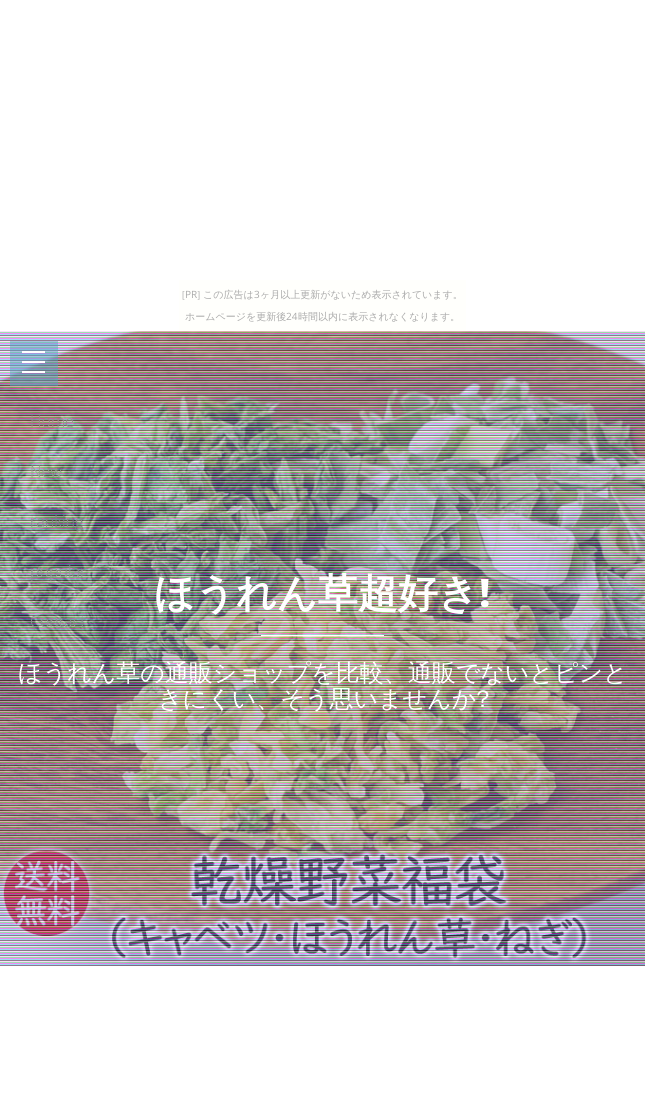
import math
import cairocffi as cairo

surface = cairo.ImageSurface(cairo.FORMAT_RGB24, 645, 1094)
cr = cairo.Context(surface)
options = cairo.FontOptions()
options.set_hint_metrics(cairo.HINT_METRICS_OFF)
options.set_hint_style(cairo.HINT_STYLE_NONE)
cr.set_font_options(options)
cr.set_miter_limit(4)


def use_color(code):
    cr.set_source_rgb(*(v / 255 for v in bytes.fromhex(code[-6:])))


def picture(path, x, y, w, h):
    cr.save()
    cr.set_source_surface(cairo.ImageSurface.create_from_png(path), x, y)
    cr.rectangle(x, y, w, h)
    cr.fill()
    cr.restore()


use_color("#ffffff")
cr.paint()
use_color("#fffffc")
cr.rectangle(179, 280, 287, 51)
cr.fill()
cr.select_font_face("WenQuanYi Zen Hei Medium")
cr.set_font_size(10)
use_color("#aaaaaa")
cr.move_to(182, 298)
cr.show_text("[")
cr.select_font_face("Open Sans")
cr.move_to(185, 298)
cr.show_text("PR")
cr.select_font_face("WenQuanYi Zen Hei Medium")
cr.move_to(197, 298)
cr.show_text("] この広告は")
cr.select_font_face("Open Sans")
cr.move_to(254, 298)
cr.show_text("3")
cr.select_font_face("WenQuanYi Zen Hei Medium")
cr.move_to(260, 298)
cr.show_text("ヶ月以上更新がないため表示されています。")
cr.move_to(185, 320)
cr.show_text("ホームページを更新後")
cr.select_font_face("Open Sans")
cr.move_to(286, 320)
cr.show_text("24")
cr.select_font_face("WenQuanYi Zen Hei Medium")
cr.move_to(298, 320)
cr.show_text("時間以内に表示されなくなります。")
picture("img1.png", 0, 331, 645, 635)
picture("img2.png", 0, 331, 645, 635)
cr.set_source_rgba(0.345, 0.635, 0.769, 0.5)
cr.rectangle(10, 341, 48, 45)
cr.fill()
use_color("#ffffff")
cr.rectangle(22, 371, 23, 2)
cr.fill()
cr.rectangle(22, 361, 23, 2)
cr.fill()
cr.rectangle(22, 351, 23, 2)
cr.fill()
cr.select_font_face("Open Sans Light")
cr.set_font_size(16)
use_color("#9b8a8c")
cr.move_to(30, 427)
cr.show_text("Home")
use_color("#949e92")
cr.move_to(30, 477)
cr.show_text("New")
use_color("#838689")
cr.move_to(30, 527)
cr.show_text("ranking")
use_color("#8c9292")
cr.move_to(30, 577)
cr.show_text("popular")
cr.move_to(30, 627)
cr.show_text("Contact")
cr.select_font_face("WenQuanYi Zen Hei", cairo.FONT_SLANT_NORMAL, cairo.FONT_WEIGHT_BOLD)
cr.set_font_size(40)
use_color("#ffffff")
cr.move_to(154, 607)
cr.show_text("ほうれん草超好き")
cr.select_font_face("Montserrat", cairo.FONT_SLANT_NORMAL, cairo.FONT_WEIGHT_BOLD)
cr.move_to(479, 607)
cr.show_text("!")
cr.rectangle(261, 635, 123, 1)
cr.fill()
cr.select_font_face("WenQuanYi Zen Hei Medium")
cr.set_font_size(24)
cr.move_to(18, 681)
cr.show_text("ほうれん草の通販ショップを比較、通販でないとピンと")
cr.move_to(158, 707)
cr.show_text("きにくい、そう思いませんか?")
surface.write_to_png("result.png")
